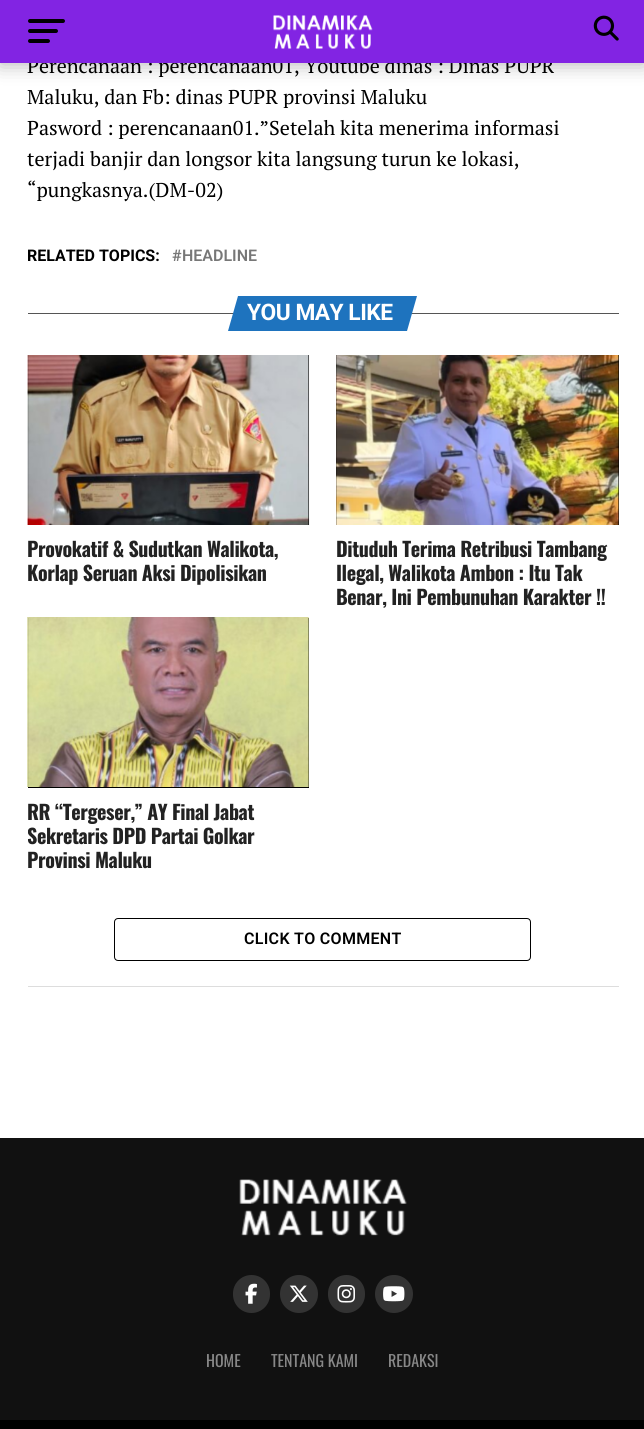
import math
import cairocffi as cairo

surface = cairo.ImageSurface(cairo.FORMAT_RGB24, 644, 1429)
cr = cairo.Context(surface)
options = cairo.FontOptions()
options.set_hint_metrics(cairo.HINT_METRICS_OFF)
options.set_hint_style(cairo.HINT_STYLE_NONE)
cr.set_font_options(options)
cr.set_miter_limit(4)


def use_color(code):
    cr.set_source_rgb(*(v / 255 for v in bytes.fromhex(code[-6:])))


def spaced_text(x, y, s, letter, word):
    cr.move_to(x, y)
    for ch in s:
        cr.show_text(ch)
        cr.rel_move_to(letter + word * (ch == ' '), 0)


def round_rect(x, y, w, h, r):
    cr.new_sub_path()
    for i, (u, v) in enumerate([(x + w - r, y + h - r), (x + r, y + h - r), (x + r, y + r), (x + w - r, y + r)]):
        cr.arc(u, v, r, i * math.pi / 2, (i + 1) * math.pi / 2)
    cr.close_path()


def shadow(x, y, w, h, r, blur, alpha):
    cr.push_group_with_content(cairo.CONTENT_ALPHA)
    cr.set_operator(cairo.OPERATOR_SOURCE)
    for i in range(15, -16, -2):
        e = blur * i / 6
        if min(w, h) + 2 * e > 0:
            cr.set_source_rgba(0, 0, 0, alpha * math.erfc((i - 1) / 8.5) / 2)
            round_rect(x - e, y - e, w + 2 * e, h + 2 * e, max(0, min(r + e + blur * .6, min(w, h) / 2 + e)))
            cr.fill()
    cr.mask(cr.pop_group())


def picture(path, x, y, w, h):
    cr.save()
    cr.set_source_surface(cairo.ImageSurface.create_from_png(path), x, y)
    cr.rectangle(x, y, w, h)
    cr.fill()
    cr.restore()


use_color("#ffffff")
cr.paint()
use_color("#000000")
shadow(0, 1, 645, 63, 0, 10, 0.3)
cr.select_font_face("PT Serif")
cr.set_font_size(20)
use_color("#000000")
cr.move_to(27, 73)
cr.show_text("Perencanaan : perencanaan01, Youtube dinas : Dinas PUPR")
use_color("#8224e3")
cr.rectangle(0, 0, 644, 63)
cr.fill()
use_color("#000000")
round_rect(28, 19, 37, 4, 2)
cr.fill()
round_rect(28, 29, 30, 4, 2)
cr.fill()
round_rect(28, 39, 22, 4, 2)
cr.fill()
picture("img1.png", 273, 15, 100, 34)
picture("img2.png", 593, 15, 26, 26)
cr.move_to(27, 104)
cr.show_text("Maluku, dan Fb: dinas PUPR provinsi Maluku")
cr.move_to(27, 135)
cr.show_text("Pasword : perencanaan01.”Setelah kita menerima informasi")
cr.move_to(27, 166)
cr.show_text("terjadi banjir dan longsor kita langsung turun ke lokasi,")
cr.move_to(27, 197)
cr.show_text("“pungkasnya.(DM-02)")
cr.select_font_face("Roboto", cairo.FONT_SLANT_NORMAL, cairo.FONT_WEIGHT_BOLD)
cr.set_font_size(16)
cr.move_to(27, 261)
cr.show_text("RELATED TOPICS:")
cr.select_font_face("Roboto SemiBold")
use_color("#777777")
cr.move_to(172, 261)
cr.show_text("#")
cr.move_to(182, 261)
cr.show_text("HEADLINE")
use_color("#555555")
cr.rectangle(28, 313, 591, 1)
cr.fill()
use_color("#1e73be")
cr.new_path()
cr.move_to(238, 296)
cr.line_to(417, 296)
cr.line_to(407, 331)
cr.line_to(228, 331)
cr.close_path()
cr.fill()
cr.select_font_face("Roboto", cairo.FONT_SLANT_NORMAL, cairo.FONT_WEIGHT_BOLD)
cr.set_font_size(22.75)
use_color("#ffffff")
spaced_text(247, 320, "YOU MAY LIKE", -0.5, 0)
use_color("#000000")
cr.rectangle(28, 355, 281, 170)
cr.fill()
picture("img3.png", 27, 355, 283, 170)
cr.select_font_face("Oswald", cairo.FONT_SLANT_NORMAL, cairo.FONT_WEIGHT_BOLD)
cr.set_font_size(20)
use_color("#222222")
spaced_text(27, 557, "Provokatif & Sudutkan Walikota,", -0.4, 0)
spaced_text(27, 581, "Korlap Seruan Aksi Dipolisikan", -0.4, 0)
use_color("#000000")
cr.rectangle(336, 355, 283, 170)
cr.fill()
picture("img4.png", 336, 355, 283, 170)
use_color("#222222")
spaced_text(336, 557, "Dituduh Terima Retribusi Tambang", -0.4, 0)
spaced_text(336, 581, "Ilegal, Walikota Ambon : Itu Tak", -0.4, 0)
spaced_text(336, 605, "Benar, Ini Pembunuhan Karakter !!", -0.4, 0)
use_color("#000000")
cr.rectangle(28, 618, 281, 170)
cr.fill()
picture("img5.png", 27, 617, 282, 170)
use_color("#222222")
spaced_text(27, 820, "RR “Tergeser,” AY Final Jabat", -0.4, 0)
cr.save()
cr.rectangle(28, 618, 281, 262)
cr.clip()
spaced_text(27, 844, "Sekretaris DPD Partai Golkar", -0.4, 0)
cr.restore()
spaced_text(27, 868, "Provinsi Maluku", -0.4, 0)
round_rect(114.5, 918.5, 416, 42, 3.5)
use_color("#000000")
cr.set_line_width(1)
cr.stroke()
cr.select_font_face("Roboto SemiBold")
cr.set_font_size(16)
spaced_text(244, 944, "CLICK TO COMMENT", 0.3, 0)
use_color("#dddddd")
cr.rectangle(28, 986, 591, 1)
cr.fill()
use_color("#111111")
cr.rectangle(0, 1138, 644, 282)
cr.fill()
picture("img6.png", 239, 1179, 168, 57)
use_color("#333333")
round_rect(233, 1275, 37, 38, 18.5)
cr.fill()
picture("img7.png", 245, 1283, 12, 21)
cr.arc(299, 1294, 19, 0, 2 * math.pi)
cr.fill()
picture("img8.png", 289, 1285, 19, 17)
round_rect(328, 1275, 37, 38, 18.5)
cr.fill()
picture("img9.png", 337, 1285, 18, 18)
cr.arc(394, 1294, 19, 0, 2 * math.pi)
cr.fill()
picture("img10.png", 383, 1286, 22, 16)
cr.select_font_face("Oswald")
use_color("#888888")
cr.move_to(206, 1367)
cr.show_text("HOME")
cr.move_to(271, 1367)
cr.show_text("TENTANG KAMI")
cr.move_to(388, 1367)
cr.show_text("REDAKSI")
use_color("#000000")
cr.rectangle(0, 1420, 644, 9)
cr.fill()
surface.write_to_png("result.png")
